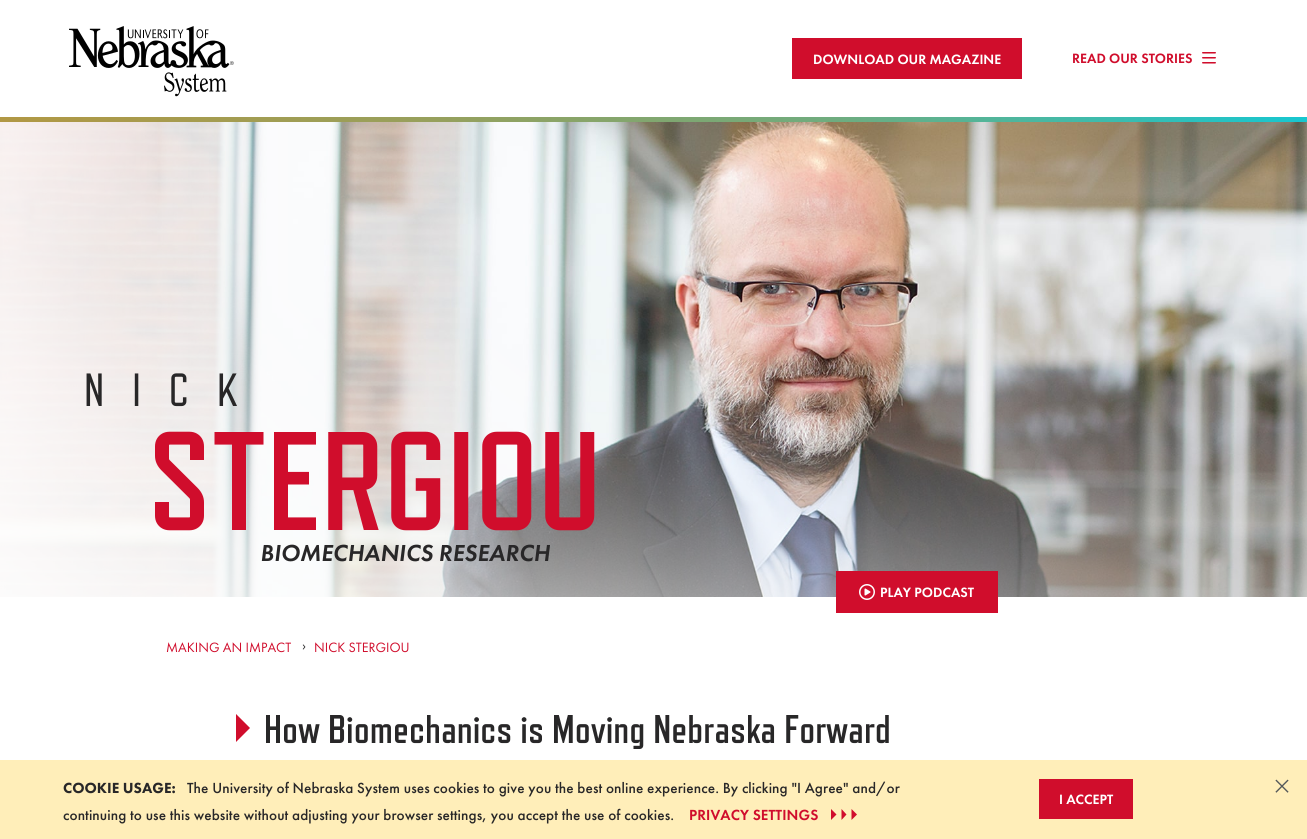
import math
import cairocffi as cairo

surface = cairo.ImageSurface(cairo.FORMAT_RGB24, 1307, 839)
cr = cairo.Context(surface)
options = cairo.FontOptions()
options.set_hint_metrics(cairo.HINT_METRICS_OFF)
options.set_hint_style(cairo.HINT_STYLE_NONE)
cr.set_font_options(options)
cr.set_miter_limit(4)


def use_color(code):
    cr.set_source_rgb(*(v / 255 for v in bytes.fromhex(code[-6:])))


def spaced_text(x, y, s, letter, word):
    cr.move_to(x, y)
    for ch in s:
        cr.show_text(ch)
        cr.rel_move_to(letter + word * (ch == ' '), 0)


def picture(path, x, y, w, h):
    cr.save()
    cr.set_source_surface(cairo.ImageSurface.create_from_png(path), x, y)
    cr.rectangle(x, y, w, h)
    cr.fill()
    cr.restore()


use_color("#ffffff")
cr.paint()
picture("img1.png", 69, 26, 165, 71)
use_color("#d00d2c")
cr.rectangle(792, 38, 230, 41)
cr.fill()
cr.select_font_face("Futura PT Medium")
cr.set_font_size(14)
use_color("#ffffff")
cr.move_to(813, 64)
cr.show_text("DOWNLOAD OUR MAGAZINE")
use_color("#d00d2c")
cr.move_to(1072, 63)
cr.show_text("READ OUR STORIES")
picture("img2.png", 1202, 52, 14, 12)
gradient = cairo.LinearGradient(0, 120, 1307, 119)
gradient.add_color_stop_rgba(0, 0.694, 0.596, 0.267, 1)
gradient.add_color_stop_rgba(0.33, 0.592, 0.627, 0.361, 1)
gradient.add_color_stop_rgba(0.64, 0.435, 0.675, 0.498, 1)
gradient.add_color_stop_rgba(1, 0.09, 0.78, 0.816, 1)
cr.set_source(gradient)
cr.rectangle(0, 117, 1307, 5)
cr.fill()
picture("img3.png", 0, 122, 1307, 475)
cr.select_font_face("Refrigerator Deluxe")
cr.set_font_size(46.5)
use_color("#282728")
spaced_text(84, 406, "NICK", 28, 0)
cr.select_font_face("Refrigerator Deluxe", cairo.FONT_SLANT_NORMAL, cairo.FONT_WEIGHT_BOLD)
cr.set_font_size(140)
use_color("#d00d2c")
cr.move_to(148, 530)
cr.show_text("STERGIOU")
cr.select_font_face("Futura PT Medium", cairo.FONT_SLANT_ITALIC)
cr.set_font_size(24)
use_color("#282728")
cr.move_to(260, 561)
cr.show_text("BIOMECHANICS RESEARCH")
use_color("#d00d2c")
cr.rectangle(836, 571, 162, 42)
cr.fill()
picture("img4.png", 859, 584, 16, 16)
cr.select_font_face("Futura PT Medium")
cr.set_font_size(14)
use_color("#ffffff")
cr.move_to(880, 597)
cr.show_text("PLAY PODCAST")
cr.select_font_face("Futura PT")
use_color("#d00d2c")
cr.move_to(166, 652)
cr.show_text("MAKING AN IMPACT")
use_color("#282728")
cr.move_to(302, 650)
cr.show_text("›")
use_color("#d00d2c")
cr.move_to(314, 652)
cr.show_text("NICK STERGIOU")
cr.new_path()
cr.move_to(250, 728)
cr.line_to(236, 714)
cr.line_to(236, 742)
cr.close_path()
cr.fill()
cr.select_font_face("Refrigerator Deluxe", cairo.FONT_SLANT_NORMAL, cairo.FONT_WEIGHT_BOLD)
cr.set_font_size(40)
use_color("#282728")
cr.move_to(264, 743)
cr.show_text("How Biomechanics is Moving Nebraska Forward")
use_color("#ffeeb9")
cr.rectangle(0, 760, 1307, 79)
cr.fill()
cr.select_font_face("Futura PT Black")
cr.set_font_size(15.2)
use_color("#282728")
cr.move_to(63, 793)
cr.show_text("COOKIE USAGE:")
cr.select_font_face("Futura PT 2 Medium")
spaced_text(187, 793, "The University of Nebraska System uses cookies to give you the best online experience. By clicking \"I Agree\" and/or", 0.1, 0)
spaced_text(63, 820, "continuing to use this website without adjusting your browser settings, you accept the use of cookies.", 0.1, 0)
cr.select_font_face("Futura PT Medium")
use_color("#d00d2c")
spaced_text(689, 820, "PRIVACY SETTINGS", 0.1, 0)
cr.new_path()
cr.move_to(831, 809)
cr.line_to(831, 820)
cr.line_to(836.5, 814.5)
cr.close_path()
cr.move_to(841.5, 809)
cr.line_to(841.5, 820)
cr.line_to(846.5, 814.5)
cr.close_path()
cr.move_to(851.5, 809)
cr.line_to(851.5, 820)
cr.line_to(857, 814.5)
cr.close_path()
cr.fill()
cr.rectangle(1039, 779, 94, 40)
cr.fill()
cr.set_font_size(14)
use_color("#ffffff")
cr.move_to(1059, 804)
cr.show_text("I ACCEPT")
cr.select_font_face("Futura PT Light")
cr.set_font_size(36)
use_color("#54585a")
cr.move_to(1273, 798)
cr.show_text("×")
surface.write_to_png("result.png")
